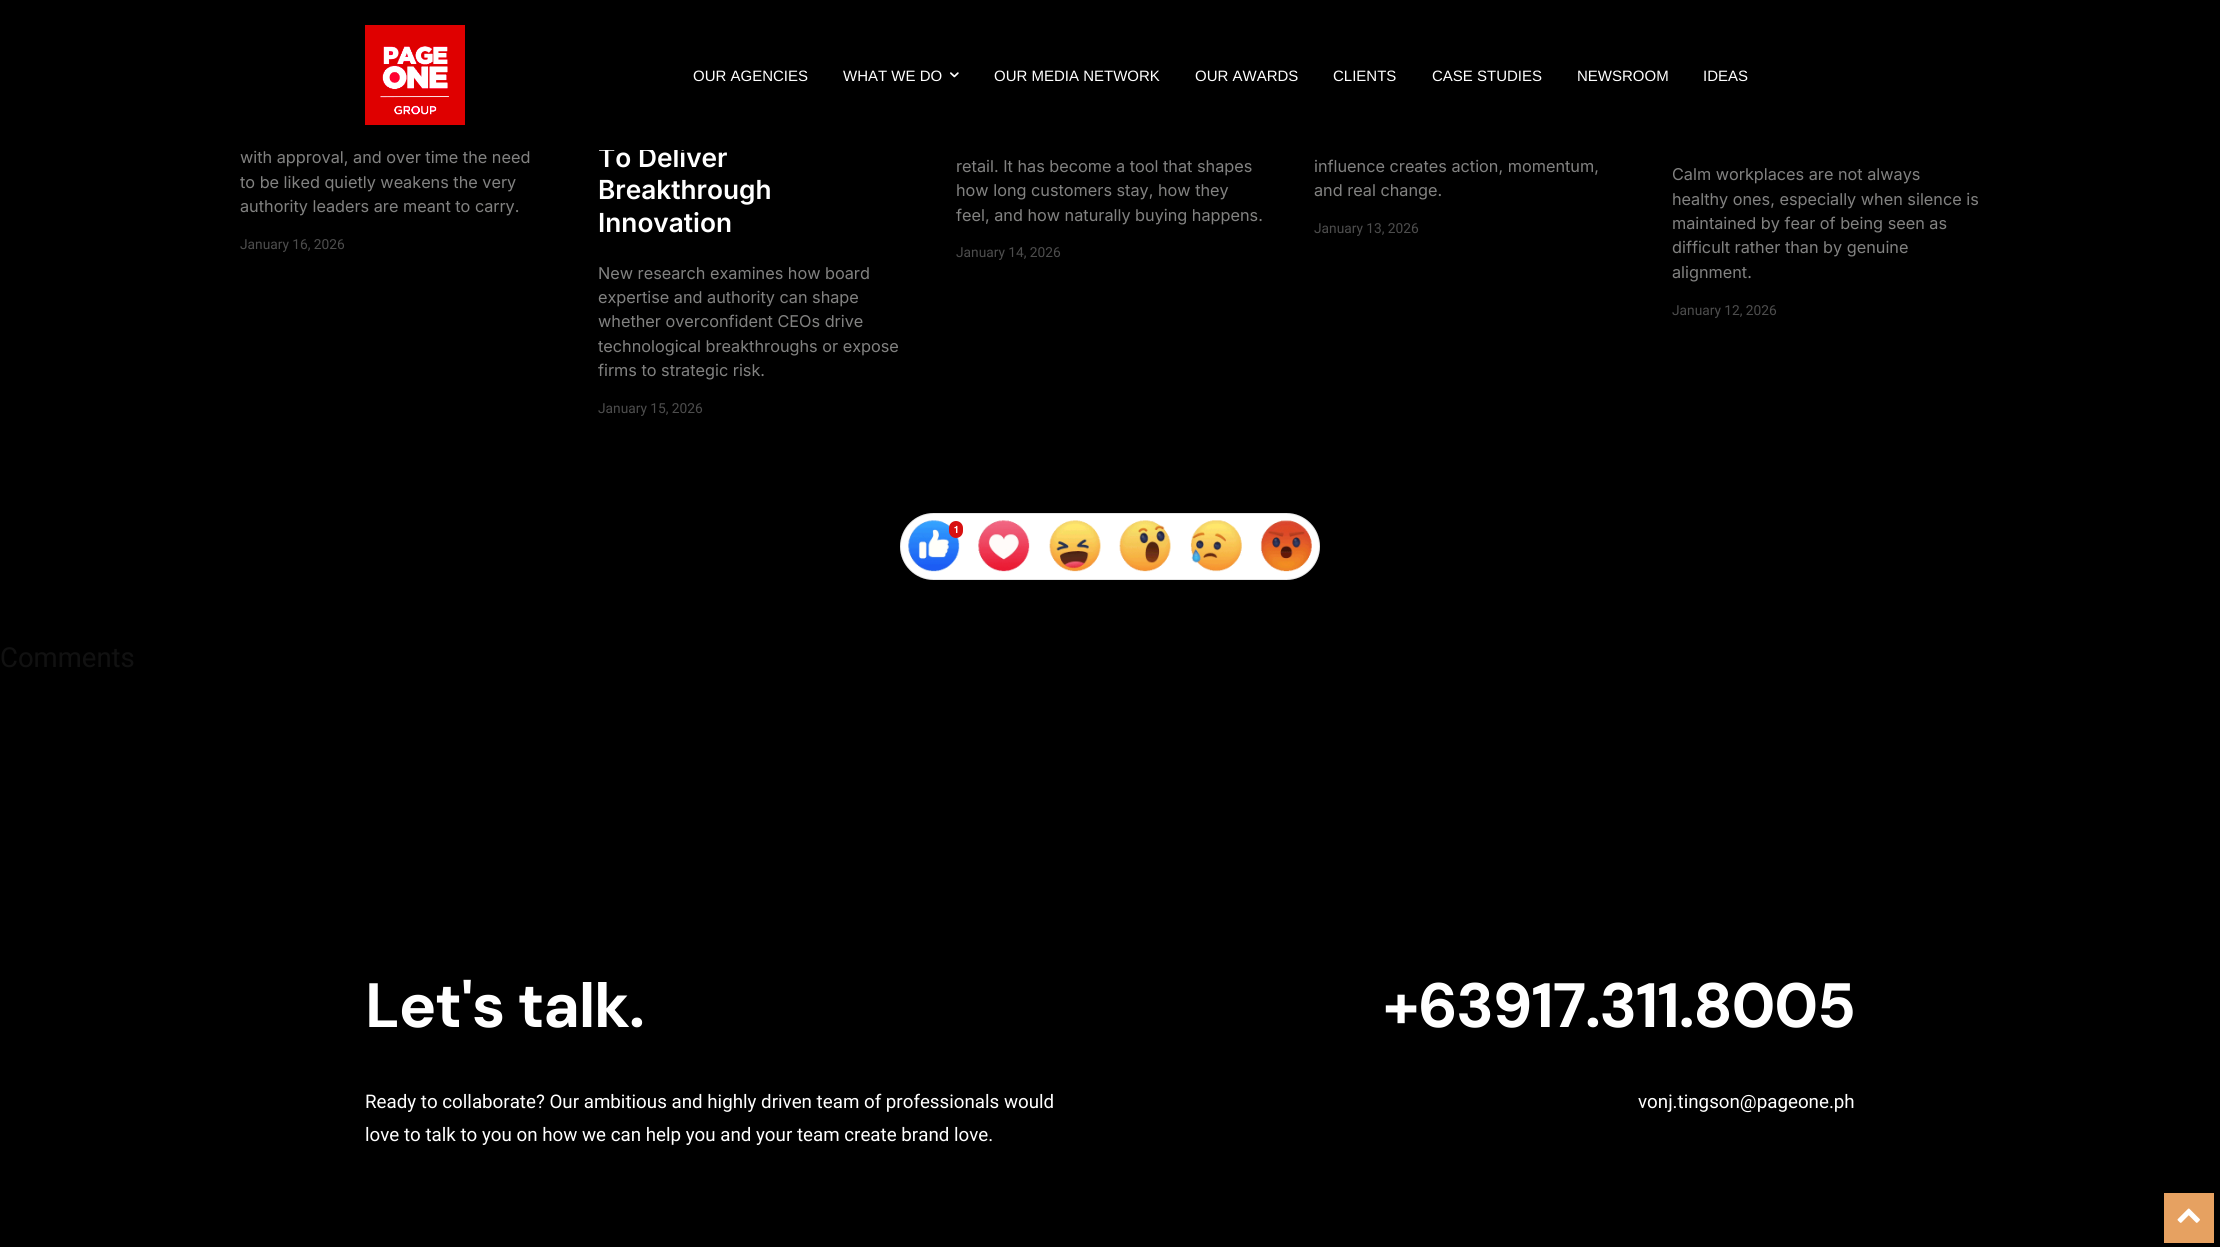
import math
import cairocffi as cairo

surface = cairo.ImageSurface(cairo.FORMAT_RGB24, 2220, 1247)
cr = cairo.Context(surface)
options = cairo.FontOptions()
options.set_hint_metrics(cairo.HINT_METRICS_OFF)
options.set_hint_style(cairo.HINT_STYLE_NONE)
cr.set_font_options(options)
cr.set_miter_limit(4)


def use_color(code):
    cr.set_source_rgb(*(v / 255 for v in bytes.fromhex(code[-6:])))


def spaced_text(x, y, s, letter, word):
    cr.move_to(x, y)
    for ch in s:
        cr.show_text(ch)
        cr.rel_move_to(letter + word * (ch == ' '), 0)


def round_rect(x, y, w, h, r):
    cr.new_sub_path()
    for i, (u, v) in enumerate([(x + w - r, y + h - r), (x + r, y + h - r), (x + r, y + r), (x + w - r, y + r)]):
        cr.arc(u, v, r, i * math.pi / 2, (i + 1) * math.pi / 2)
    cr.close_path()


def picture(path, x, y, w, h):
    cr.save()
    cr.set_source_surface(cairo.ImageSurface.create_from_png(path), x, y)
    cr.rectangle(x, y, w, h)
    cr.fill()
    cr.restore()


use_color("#000000")
cr.paint()
picture("img1.png", 365, 25, 100, 100)
cr.select_font_face("Liberation Sans")
cr.set_font_size(15)
use_color("#ffffff")
cr.move_to(693, 81)
cr.show_text("OUR AGENCIES")
cr.move_to(843, 81)
cr.show_text("WHAT WE DO")
picture("img2.png", 950, 72, 9, 6)
cr.move_to(994, 81)
cr.show_text("OUR MEDIA NETWORK")
cr.move_to(1195, 81)
cr.show_text("OUR AWARDS")
cr.move_to(1333, 81)
cr.show_text("CLIENTS")
cr.move_to(1432, 81)
cr.show_text("CASE STUDIES")
cr.move_to(1577, 81)
cr.show_text("NEWSROOM")
cr.move_to(1703, 81)
cr.show_text("IDEAS")
cr.select_font_face("Inter SemiBold")
cr.set_font_size(26.25)
cr.move_to(598, 167)
cr.show_text("To Deliver")
use_color("#000000")
cr.rectangle(599, 147, 86, 3)
cr.fill()
cr.select_font_face("Inter")
cr.set_font_size(16.25)
use_color("#828281")
cr.move_to(240, 163)
cr.show_text("with approval, and over time the need")
cr.move_to(240, 188)
cr.show_text("to be liked quietly weakens the very")
cr.move_to(240, 212)
cr.show_text("authority leaders are meant to carry.")
cr.select_font_face("Roboto")
cr.set_font_size(13.75)
use_color("#4d4d4d")
cr.move_to(240, 249)
cr.show_text("January 16, 2026")
cr.select_font_face("Inter SemiBold")
cr.set_font_size(26.25)
use_color("#ffffff")
cr.move_to(598, 199)
cr.show_text("Breakthrough")
cr.move_to(598, 232)
cr.show_text("Innovation")
cr.select_font_face("Inter")
cr.set_font_size(16.25)
use_color("#828281")
cr.move_to(598, 279)
cr.show_text("New research examines how board")
cr.move_to(598, 303)
cr.show_text("expertise and authority can shape")
cr.move_to(598, 327)
cr.show_text("whether overconfident CEOs drive")
cr.move_to(598, 352)
cr.show_text("technological breakthroughs or expose")
cr.move_to(598, 376)
cr.show_text("firms to strategic risk.")
cr.select_font_face("Roboto")
cr.set_font_size(13.75)
use_color("#4d4d4d")
cr.move_to(598, 413)
cr.show_text("January 15, 2026")
cr.select_font_face("Inter")
cr.set_font_size(16.25)
use_color("#828281")
cr.move_to(956, 172)
cr.show_text("retail. It has become a tool that shapes")
cr.move_to(956, 196)
cr.show_text("how long customers stay, how they")
cr.move_to(956, 221)
cr.show_text("feel, and how naturally buying happens.")
cr.select_font_face("Roboto")
cr.set_font_size(13.75)
use_color("#4d4d4d")
cr.move_to(956, 257)
cr.show_text("January 14, 2026")
cr.select_font_face("Inter")
cr.set_font_size(16.25)
use_color("#828281")
cr.move_to(1314, 172)
cr.show_text("influence creates action, momentum,")
cr.move_to(1314, 196)
cr.show_text("and real change.")
cr.select_font_face("Roboto")
cr.set_font_size(13.75)
use_color("#4d4d4d")
cr.move_to(1314, 233)
cr.show_text("January 13, 2026")
cr.select_font_face("Inter")
cr.set_font_size(16.25)
use_color("#828281")
cr.move_to(1672, 180)
cr.show_text("Calm workplaces are not always")
cr.move_to(1672, 205)
cr.show_text("healthy ones, especially when silence is")
cr.move_to(1672, 229)
cr.show_text("maintained by fear of being seen as")
cr.move_to(1672, 253)
cr.show_text("difficult rather than by genuine")
cr.move_to(1672, 278)
cr.show_text("alignment.")
cr.select_font_face("Roboto")
cr.set_font_size(13.75)
use_color("#4d4d4d")
cr.move_to(1672, 315)
cr.show_text("January 12, 2026")
use_color("#ffffff")
round_rect(900, 513, 420, 67, 33.5)
cr.fill()
round_rect(900.5, 513.5, 419, 66, 33)
cr.set_source_rgba(0, 0, 0, 0.1)
cr.set_line_width(1)
cr.stroke()
picture("img3.png", 908, 520, 52, 52)
use_color("#d81111")
round_rect(949, 521, 14, 17, 7)
cr.fill()
cr.select_font_face("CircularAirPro", cairo.FONT_SLANT_NORMAL, cairo.FONT_WEIGHT_BOLD)
cr.set_font_size(10)
use_color("#ffffff")
cr.move_to(954, 533)
cr.show_text("1")
picture("img4.png", 978, 520, 52, 52)
picture("img5.png", 1049, 520, 52, 52)
picture("img6.png", 1119, 520, 52, 52)
picture("img7.png", 1190, 520, 52, 52)
picture("img8.png", 1260, 520, 52, 52)
cr.select_font_face("Roboto")
cr.set_font_size(27.5)
use_color("#111111")
cr.move_to(0, 667)
cr.show_text("Comments")
cr.select_font_face("DM Sans", cairo.FONT_SLANT_NORMAL, cairo.FONT_WEIGHT_BOLD)
cr.set_font_size(62.5)
use_color("#ffffff")
spaced_text(365, 1027, "Let's talk.", -1.25, 0)
cr.select_font_face("Roboto")
cr.set_font_size(18.75)
cr.move_to(365, 1108)
cr.show_text("Ready to collaborate? Our ambitious and highly driven team of professionals would")
cr.move_to(365, 1141)
cr.show_text("love to talk to you on how we can help you and your team create brand love.")
cr.select_font_face("DM Sans", cairo.FONT_SLANT_NORMAL, cairo.FONT_WEIGHT_BOLD)
cr.set_font_size(62.5)
spaced_text(1383, 1027, "+63917.311.8005", -1.25, 0)
cr.select_font_face("Roboto")
cr.set_font_size(18.75)
cr.move_to(1638, 1108)
cr.show_text("vonj.tingson@pageone.ph")
use_color("#e6a161")
cr.rectangle(2164, 1193, 50, 50)
cr.fill()
picture("img9.png", 2177, 1208, 23, 15)
surface.write_to_png("result.png")
